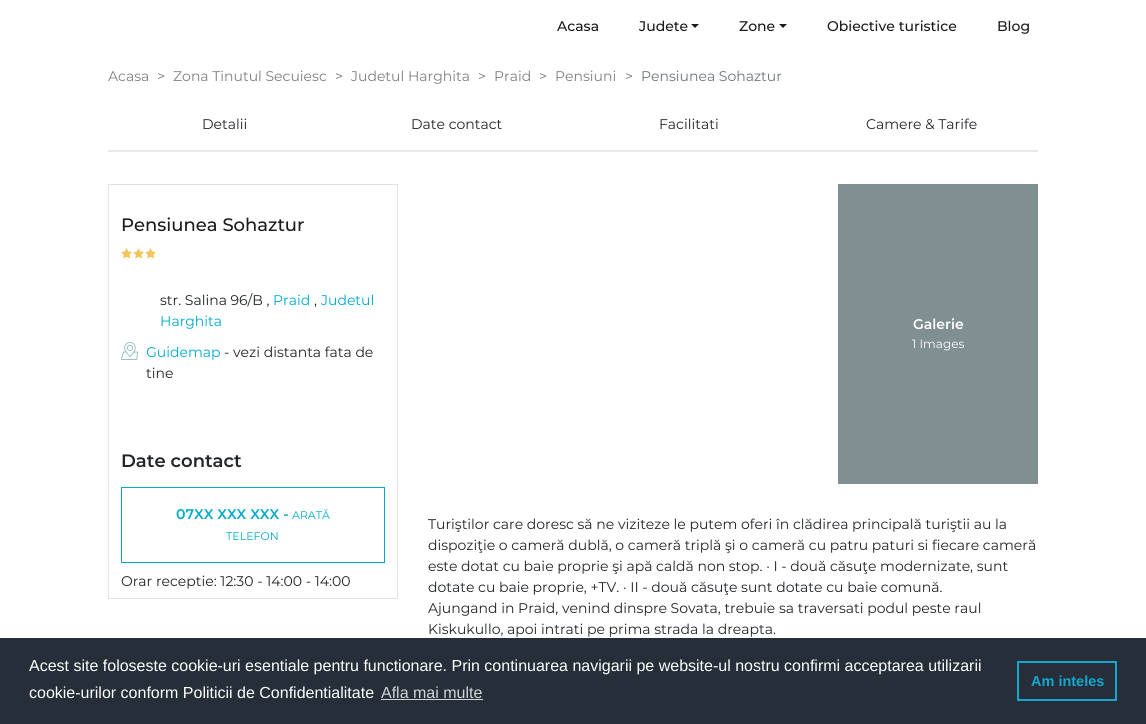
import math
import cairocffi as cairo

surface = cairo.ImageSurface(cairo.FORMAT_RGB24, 1146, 724)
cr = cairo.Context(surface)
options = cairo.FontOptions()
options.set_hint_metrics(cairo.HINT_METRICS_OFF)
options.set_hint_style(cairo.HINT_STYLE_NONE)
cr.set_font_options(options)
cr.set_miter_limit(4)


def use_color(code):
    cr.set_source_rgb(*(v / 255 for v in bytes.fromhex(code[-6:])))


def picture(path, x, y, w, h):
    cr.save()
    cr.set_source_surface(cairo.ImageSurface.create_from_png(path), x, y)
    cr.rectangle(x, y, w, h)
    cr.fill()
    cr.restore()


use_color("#ffffff")
cr.paint()
cr.select_font_face("Montserrat Medium")
cr.set_font_size(14)
use_color("#1a1a1a")
cr.move_to(557, 31)
cr.show_text("Acasa")
cr.move_to(639, 31)
cr.show_text("Judete")
cr.new_path()
cr.move_to(691, 24)
cr.line_to(699, 24)
cr.line_to(695, 28)
cr.close_path()
cr.fill()
cr.move_to(739, 31)
cr.show_text("Zone")
cr.new_path()
cr.move_to(779, 24)
cr.line_to(787, 24)
cr.line_to(783, 28)
cr.close_path()
cr.fill()
cr.move_to(827, 31)
cr.show_text("Obiective turistice")
cr.move_to(997, 31)
cr.show_text("Blog")
cr.select_font_face("Montserrat")
use_color("#808080")
cr.move_to(108, 81)
cr.show_text("Acasa")
use_color("#6c757d")
cr.move_to(157, 81)
cr.show_text(">")
use_color("#808080")
cr.move_to(173, 81)
cr.show_text("Zona Tinutul Secuiesc")
use_color("#6c757d")
cr.move_to(335, 81)
cr.show_text(">")
use_color("#808080")
cr.move_to(351, 81)
cr.show_text("Judetul Harghita")
use_color("#6c757d")
cr.move_to(478, 81)
cr.show_text(">")
use_color("#808080")
cr.move_to(494, 81)
cr.show_text("Praid")
use_color("#6c757d")
cr.move_to(539, 81)
cr.show_text(">")
use_color("#808080")
cr.move_to(555, 81)
cr.show_text("Pensiuni")
use_color("#6c757d")
cr.move_to(625, 81)
cr.show_text(">")
cr.move_to(641, 81)
cr.show_text("Pensiunea Sohaztur")
use_color("#e9e9e9")
cr.rectangle(108, 150, 930, 2)
cr.fill()
use_color("#212529")
cr.move_to(202, 129)
cr.show_text("Detalii")
cr.move_to(411, 129)
cr.show_text("Date contact")
cr.move_to(659, 129)
cr.show_text("Facilitati")
cr.move_to(866, 129)
cr.show_text("Camere & Tarife")
cr.rectangle(108.5, 184.5, 289, 414)
use_color("#e3e3e3")
cr.set_line_width(1)
cr.stroke()
cr.select_font_face("Montserrat Medium")
cr.set_font_size(18)
use_color("#1a1a1a")
cr.move_to(121, 231)
cr.show_text("Pensiunea Sohaztur")
picture("img1.png", 121, 248, 11, 11)
picture("img1.png", 133, 248, 11, 11)
picture("img1.png", 145, 248, 11, 11)
cr.select_font_face("Montserrat")
cr.set_font_size(14)
use_color("#212529")
cr.move_to(160, 305)
cr.show_text("str. Salina 96/B ,")
use_color("#00abc9")
cr.move_to(273, 305)
cr.show_text("Praid")
use_color("#212529")
cr.move_to(314, 305)
cr.show_text(",")
use_color("#00abc9")
cr.move_to(321, 305)
cr.show_text("Judetul")
cr.move_to(160, 326)
cr.show_text("Harghita")
picture("img2.png", 121, 342, 17, 18)
cr.move_to(146, 357)
cr.show_text("Guidemap")
use_color("#212529")
cr.move_to(224, 357)
cr.show_text("- vezi distanta fata de")
cr.move_to(146, 378)
cr.show_text("tine")
cr.select_font_face("Montserrat SemiBold")
cr.set_font_size(18)
cr.move_to(121, 467)
cr.show_text("Date contact")
cr.rectangle(121.5, 487.5, 263, 75)
use_color("#00abc9")
cr.stroke()
cr.set_font_size(14)
cr.move_to(176, 519)
cr.show_text("07XX XXX XXX -")
cr.select_font_face("Montserrat")
cr.set_font_size(11)
cr.move_to(292, 519)
cr.show_text("ARATĂ")
cr.move_to(226, 540)
cr.show_text("TELEFON")
cr.set_font_size(14)
use_color("#212529")
cr.move_to(121, 586)
cr.show_text("Orar receptie: 12:30 - 14:00 - 14:00")
use_color("#808f92")
cr.rectangle(838, 184, 200, 300)
cr.fill()
cr.select_font_face("Montserrat SemiBold")
use_color("#ffffff")
cr.move_to(913, 329)
cr.show_text("Galerie")
cr.select_font_face("Montserrat")
cr.set_font_size(12)
cr.move_to(912, 348)
cr.show_text("1 Images")
cr.set_font_size(14)
use_color("#212529")
cr.move_to(428, 529)
cr.show_text("Turiştilor care doresc să ne viziteze le putem oferi în clădirea principală turiştii au la")
cr.move_to(428, 550)
cr.show_text("dispoziţie o cameră dublă, o cameră triplă şi o cameră cu patru paturi si fiecare cameră")
cr.move_to(428, 571)
cr.show_text("este dotat cu baie proprie şi apă caldă non stop. · I - două căsuţe modernizate, sunt")
cr.move_to(428, 592)
cr.show_text("dotate cu baie proprie, +TV. · II - două căsuţe sunt dotate cu baie comună.")
cr.move_to(428, 613)
cr.show_text("Ajungand in Praid, venind dinspre Sovata, trebuie sa traversati podul peste raul")
cr.move_to(428, 634)
cr.show_text("Kiskukullo, apoi intrati pe prima strada la dreapta.")
use_color("#252e39")
cr.rectangle(0, 638, 1146, 86)
cr.fill()
cr.select_font_face("Liberation Sans")
cr.set_font_size(16)
use_color("#ffffff")
cr.move_to(29, 671)
cr.show_text("Acest site foloseste cookie-uri esentiale pentru functionare. Prin continuarea navigarii pe website-ul nostru confirmi acceptarea utilizarii")
cr.move_to(29, 698)
cr.show_text("cookie-urilor conform Politicii de Confidentialitate")
use_color("#d3d5d7")
cr.move_to(381, 698)
cr.show_text("Afla mai multe")
cr.rectangle(381, 699, 102, 1)
cr.fill()
cr.rectangle(1018, 662, 98, 38)
use_color("#14a7d0")
cr.set_line_width(2)
cr.stroke()
cr.select_font_face("Liberation Sans", cairo.FONT_SLANT_NORMAL, cairo.FONT_WEIGHT_BOLD)
cr.set_font_size(14.5)
cr.move_to(1031, 686)
cr.show_text("Am inteles")
surface.write_to_png("result.png")
